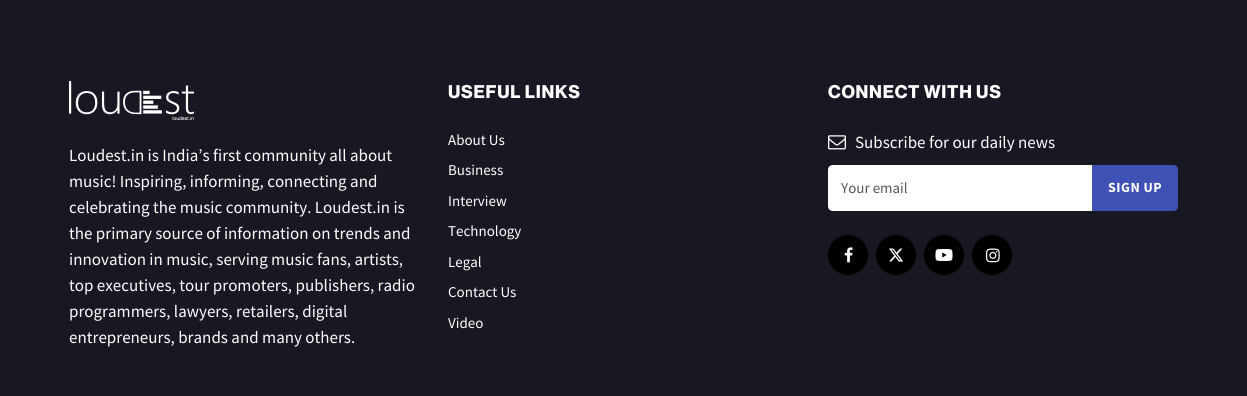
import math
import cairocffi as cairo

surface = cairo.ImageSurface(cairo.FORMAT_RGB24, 1247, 396)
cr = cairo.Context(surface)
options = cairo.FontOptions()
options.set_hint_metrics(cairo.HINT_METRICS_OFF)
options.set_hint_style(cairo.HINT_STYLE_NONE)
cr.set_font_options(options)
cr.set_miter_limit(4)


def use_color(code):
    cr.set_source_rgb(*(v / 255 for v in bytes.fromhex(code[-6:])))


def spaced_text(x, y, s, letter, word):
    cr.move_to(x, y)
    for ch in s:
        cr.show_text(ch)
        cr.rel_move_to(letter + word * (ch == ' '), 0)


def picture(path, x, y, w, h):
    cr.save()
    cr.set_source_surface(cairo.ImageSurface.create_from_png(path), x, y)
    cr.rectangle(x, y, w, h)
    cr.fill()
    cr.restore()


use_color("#171821")
cr.paint()
picture("img1.png", 69, 81, 125, 39)
cr.select_font_face("Source Sans Pro")
cr.set_font_size(17)
use_color("#ffffff")
cr.move_to(69, 161)
cr.show_text("Loudest.in is India’s first community all about")
cr.move_to(69, 187)
cr.show_text("music! Inspiring, informing, connecting and")
cr.move_to(69, 213)
cr.show_text("celebrating the music community. Loudest.in is")
cr.move_to(69, 239)
cr.show_text("the primary source of information on trends and")
cr.move_to(69, 265)
cr.show_text("innovation in music, serving music fans, artists,")
cr.move_to(69, 291)
cr.show_text("top executives, tour promoters, publishers, radio")
cr.move_to(69, 317)
cr.show_text("programmers, lawyers, retailers, digital")
cr.move_to(69, 343)
cr.show_text("entrepreneurs, brands and many others.")
cr.select_font_face("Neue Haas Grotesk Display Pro", cairo.FONT_SLANT_NORMAL, cairo.FONT_WEIGHT_BOLD)
cr.set_font_size(18)
spaced_text(448, 98, "USEFUL LINKS", 0.75, 0)
cr.select_font_face("Source Sans Pro")
cr.set_font_size(15)
cr.move_to(448, 145)
cr.show_text("About Us")
cr.move_to(448, 175)
cr.show_text("Business")
cr.move_to(448, 206)
cr.show_text("Interview")
cr.move_to(448, 236)
cr.show_text("Technology")
cr.move_to(448, 267)
cr.show_text("Legal")
cr.move_to(448, 297)
cr.show_text("Contact Us")
cr.move_to(448, 328)
cr.show_text("Video")
cr.select_font_face("Neue Haas Grotesk Display Pro", cairo.FONT_SLANT_NORMAL, cairo.FONT_WEIGHT_BOLD)
cr.set_font_size(18)
spaced_text(828, 98, "CONNECT WITH US", 0.75, 0)
picture("img2.png", 828, 135, 18, 15)
cr.select_font_face("Source Sans Pro")
cr.set_font_size(17)
cr.move_to(855, 148)
cr.show_text("Subscribe for our daily news")
cr.new_path()
cr.move_to(833, 165)
cr.line_to(1092, 165)
cr.line_to(1092, 211)
cr.line_to(833, 211)
cr.curve_to(830, 211, 828, 209, 828, 206)
cr.line_to(828, 170)
cr.curve_to(828, 167, 830, 165, 833, 165)
cr.close_path()
cr.fill()
cr.set_font_size(15)
use_color("#54555e")
cr.move_to(841, 193)
cr.show_text("Your email")
use_color("#3f51b5")
cr.new_path()
cr.move_to(1092, 165)
cr.line_to(1173, 165)
cr.curve_to(1176, 165, 1178, 167, 1178, 170)
cr.line_to(1178, 206)
cr.curve_to(1178, 209, 1176, 211, 1173, 211)
cr.line_to(1092, 211)
cr.close_path()
cr.fill()
cr.select_font_face("Source Sans Pro", cairo.FONT_SLANT_NORMAL, cairo.FONT_WEIGHT_BOLD)
cr.set_font_size(14)
use_color("#ffffff")
spaced_text(1108, 192, "SIGN UP", 0.5, 0)
use_color("#000000")
cr.new_path()
cr.arc(848, 255, 20, 0, 2 * math.pi)
cr.fill()
picture("img3.png", 844, 247, 9, 16)
cr.arc(896, 255, 20, 0, 2 * math.pi)
cr.fill()
picture("img4.png", 889, 248, 15, 14)
cr.arc(944, 255, 20, 0, 2 * math.pi)
cr.fill()
picture("img5.png", 935, 249, 18, 12)
cr.arc(992, 255, 20, 0, 2 * math.pi)
cr.fill()
picture("img6.png", 986, 248, 14, 15)
surface.write_to_png("result.png")
